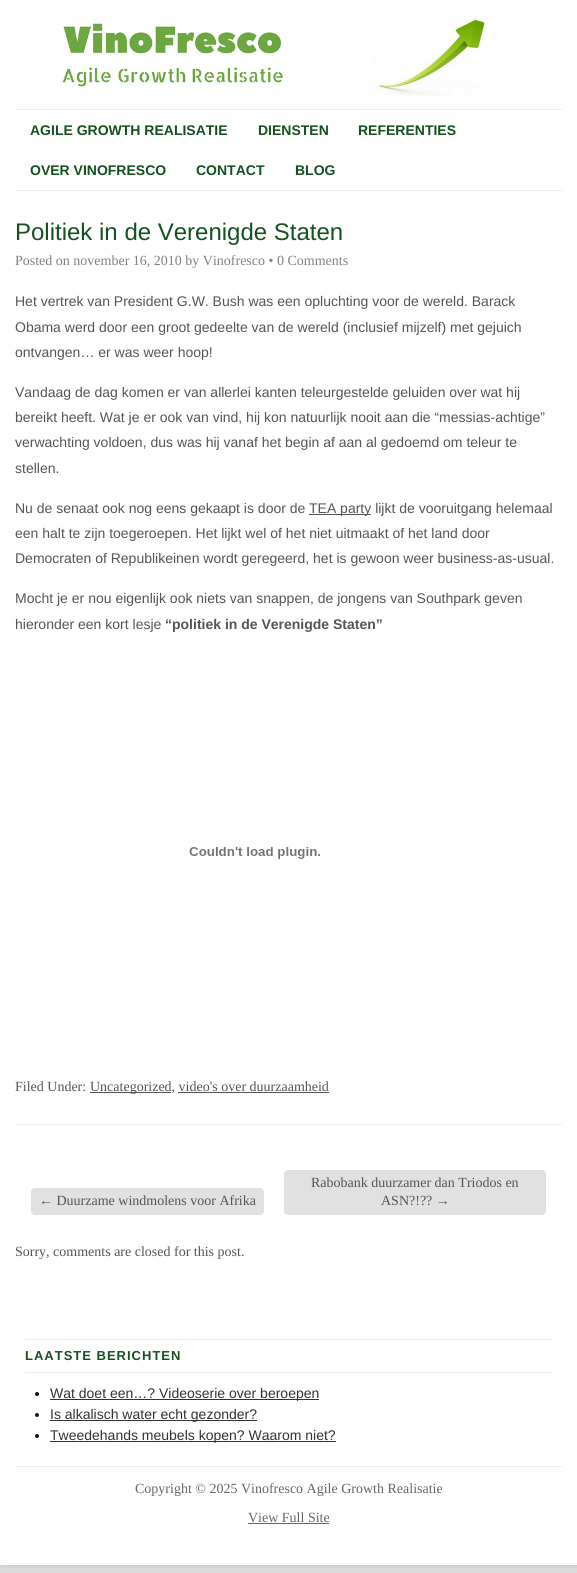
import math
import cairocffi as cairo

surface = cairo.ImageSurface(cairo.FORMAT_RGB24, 577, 1573)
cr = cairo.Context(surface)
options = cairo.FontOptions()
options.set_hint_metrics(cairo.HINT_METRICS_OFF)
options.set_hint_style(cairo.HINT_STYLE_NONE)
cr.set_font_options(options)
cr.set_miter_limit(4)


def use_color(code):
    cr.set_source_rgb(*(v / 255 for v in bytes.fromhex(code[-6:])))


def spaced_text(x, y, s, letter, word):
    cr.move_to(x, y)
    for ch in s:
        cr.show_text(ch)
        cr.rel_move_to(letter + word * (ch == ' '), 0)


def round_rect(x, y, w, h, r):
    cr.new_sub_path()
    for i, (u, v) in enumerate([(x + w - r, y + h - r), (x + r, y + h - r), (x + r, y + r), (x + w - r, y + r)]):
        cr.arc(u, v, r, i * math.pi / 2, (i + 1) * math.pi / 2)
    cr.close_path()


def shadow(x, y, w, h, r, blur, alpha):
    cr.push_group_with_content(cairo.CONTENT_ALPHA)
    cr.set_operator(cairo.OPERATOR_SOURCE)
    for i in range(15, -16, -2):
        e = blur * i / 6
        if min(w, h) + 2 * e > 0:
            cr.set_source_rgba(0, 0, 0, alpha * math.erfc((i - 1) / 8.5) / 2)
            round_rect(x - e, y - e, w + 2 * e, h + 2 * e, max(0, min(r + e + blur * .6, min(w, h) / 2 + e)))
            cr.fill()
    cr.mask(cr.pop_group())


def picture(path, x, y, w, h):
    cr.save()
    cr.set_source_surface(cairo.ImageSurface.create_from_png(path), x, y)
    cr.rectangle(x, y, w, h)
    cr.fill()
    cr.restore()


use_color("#dddddd")
cr.paint()
use_color("#c7c7c7")
shadow(1, 1, 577, 1565, 0, 4, 1)
use_color("#ffffff")
cr.rectangle(0, 0, 577, 1565)
cr.fill()
picture("img1.png", 62, 18, 425, 78)
use_color("#eeeeee")
cr.rectangle(15, 109, 547, 1)
cr.fill()
cr.rectangle(15, 190, 547, 1)
cr.fill()
cr.select_font_face("Liberation Sans", cairo.FONT_SLANT_NORMAL, cairo.FONT_WEIGHT_BOLD)
cr.set_font_size(14)
use_color("#13521f")
cr.move_to(30, 135)
cr.show_text("AGILE GROWTH REALISATIE")
cr.move_to(258, 135)
cr.show_text("DIENSTEN")
cr.move_to(358, 135)
cr.show_text("REFERENTIES")
cr.move_to(30, 175)
cr.show_text("OVER VINOFRESCO")
cr.move_to(196, 175)
cr.show_text("CONTACT")
cr.move_to(295, 175)
cr.show_text("BLOG")
use_color("#efefef")
cr.rectangle(15, 1124, 547, 1)
cr.fill()
cr.select_font_face("Liberation Sans")
cr.set_font_size(24)
use_color("#13521f")
cr.move_to(15, 240)
cr.show_text("Politiek in de Verenigde Staten")
cr.select_font_face("Liberation Serif")
cr.set_font_size(14)
use_color("#818181")
cr.move_to(15, 265)
cr.show_text("Posted on november 16, 2010 by Vinofresco • 0 Comments")
cr.select_font_face("Liberation Sans")
use_color("#555555")
cr.move_to(15, 306)
cr.show_text("Het vertrek van President G.W. Bush was een opluchting voor de wereld. Barack")
cr.move_to(15, 332)
cr.show_text("Obama werd door een groot gedeelte van de wereld (inclusief mijzelf) met gejuich")
cr.move_to(15, 357)
cr.show_text("ontvangen… er was weer hoop!")
cr.move_to(15, 397)
cr.show_text("Vandaag de dag komen er van allerlei kanten teleurgestelde geluiden over wat hij")
cr.move_to(15, 422)
cr.show_text("bereikt heeft. Wat je er ook van vind, hij kon natuurlijk nooit aan die “messias-achtige”")
cr.move_to(15, 447)
cr.show_text("verwachting voldoen, dus was hij vanaf het begin af aan al gedoemd om teleur te")
cr.move_to(15, 473)
cr.show_text("stellen.")
cr.move_to(15, 513)
cr.show_text("Nu de senaat ook nog eens gekaapt is door de")
cr.rectangle(309, 514, 62, 1)
cr.fill()
cr.move_to(309, 513)
cr.show_text("TEA party lijkt de vooruitgang helemaal")
cr.move_to(15, 538)
cr.show_text("een halt te zijn toegeroepen. Het lijkt wel of het niet uitmaakt of het land door")
cr.move_to(15, 563)
cr.show_text("Democraten of Republikeinen wordt geregeerd, het is gewoon weer business-as-usual.")
cr.move_to(15, 603)
cr.show_text("Mocht je er nou eigenlijk ook niets van snappen, de jongens van Southpark geven")
cr.move_to(15, 629)
cr.show_text("hieronder een kort lesje")
cr.select_font_face("Liberation Sans", cairo.FONT_SLANT_NORMAL, cairo.FONT_WEIGHT_BOLD)
cr.move_to(165, 629)
cr.show_text("“politiek in de Verenigde Staten”")
picture("img2.png", 189, 847, 131, 12)
cr.select_font_face("Liberation Serif")
cr.move_to(15, 1091)
cr.show_text("Filed Under:")
cr.rectangle(90, 1092, 81, 1)
cr.fill()
cr.move_to(90, 1091)
cr.show_text("Uncategorized, video's over duurzaamheid")
cr.rectangle(178, 1092, 151, 1)
cr.fill()
use_color("#e1e1e1")
round_rect(31, 1188, 233, 27, 4)
cr.fill()
use_color("#555555")
cr.move_to(39, 1205)
cr.show_text("← Duurzame windmolens voor Afrika")
use_color("#e1e1e1")
round_rect(284, 1170, 262, 45, 4)
cr.fill()
use_color("#555555")
cr.move_to(311, 1187)
cr.show_text("Rabobank duurzamer dan Triodos en")
cr.move_to(381, 1205)
cr.show_text("ASN?!?? →")
cr.move_to(15, 1256)
cr.show_text("Sorry, comments are closed for this post.")
use_color("#eeeeee")
cr.rectangle(25, 1339, 527, 1)
cr.fill()
cr.rectangle(25, 1372, 527, 1)
cr.fill()
cr.select_font_face("Liberation Sans", cairo.FONT_SLANT_NORMAL, cairo.FONT_WEIGHT_BOLD)
cr.set_font_size(13)
use_color("#13521f")
spaced_text(25, 1360, "LAATSTE BERICHTEN", 1, 0)
use_color("#0e1805")
cr.new_path()
cr.arc(37, 1394, 2, 0, 2 * math.pi)
cr.fill()
use_color("#333333")
cr.rectangle(50, 1399, 269, 1)
cr.fill()
cr.select_font_face("Liberation Sans")
cr.set_font_size(14)
cr.move_to(50, 1398)
cr.show_text("Wat doet een…? Videoserie over beroepen")
use_color("#0e1805")
cr.new_path()
cr.arc(37, 1415, 2, 0, 2 * math.pi)
cr.fill()
use_color("#333333")
cr.rectangle(50, 1420, 207, 1)
cr.fill()
cr.move_to(50, 1419)
cr.show_text("Is alkalisch water echt gezonder?")
use_color("#0e1805")
cr.new_path()
cr.arc(37, 1436, 2, 0, 2 * math.pi)
cr.fill()
use_color("#333333")
cr.rectangle(50, 1441, 286, 1)
cr.fill()
cr.move_to(50, 1440)
cr.show_text("Tweedehands meubels kopen? Waarom niet?")
use_color("#eeeeee")
cr.rectangle(15, 1466, 547, 1)
cr.fill()
cr.select_font_face("Liberation Serif")
use_color("#666666")
cr.move_to(135, 1493)
cr.show_text("Copyright © 2025 Vinofresco Agile Growth Realisatie")
cr.move_to(248, 1522)
cr.show_text("View Full Site")
cr.rectangle(248, 1523, 81, 1)
cr.fill()
surface.write_to_png("result.png")
